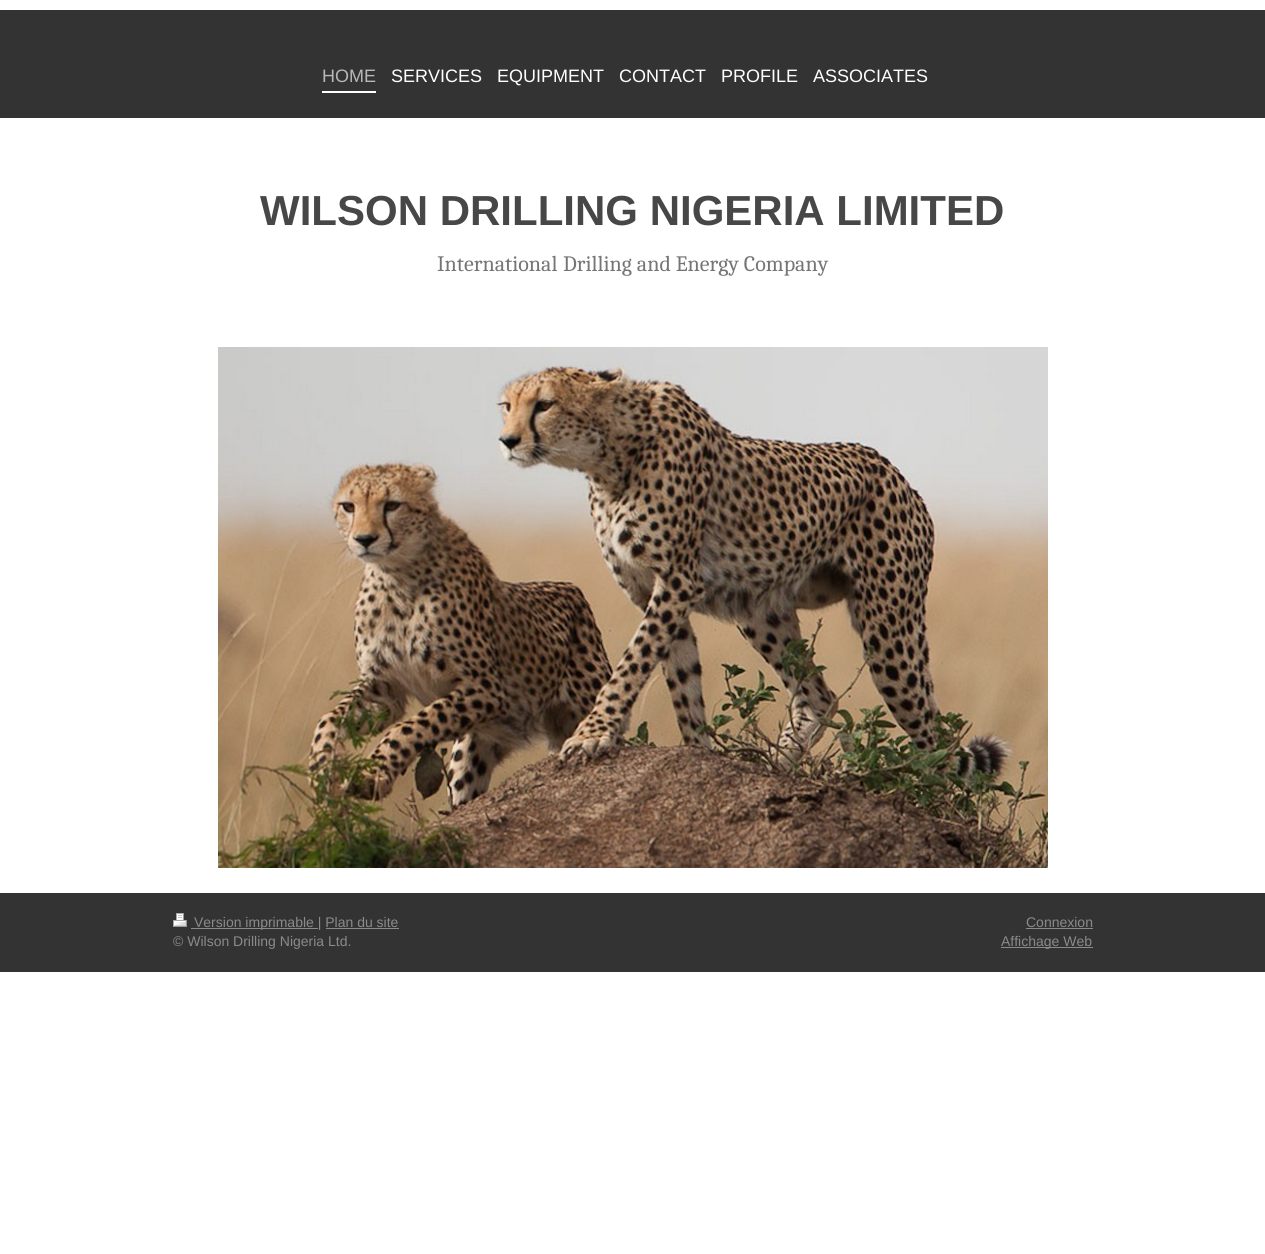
import math
import cairocffi as cairo

surface = cairo.ImageSurface(cairo.FORMAT_RGB24, 1265, 1254)
cr = cairo.Context(surface)
options = cairo.FontOptions()
options.set_hint_metrics(cairo.HINT_METRICS_OFF)
options.set_hint_style(cairo.HINT_STYLE_NONE)
cr.set_font_options(options)
cr.set_miter_limit(4)


def use_color(code):
    cr.set_source_rgb(*(v / 255 for v in bytes.fromhex(code[-6:])))


def picture(path, x, y, w, h):
    cr.save()
    cr.set_source_surface(cairo.ImageSurface.create_from_png(path), x, y)
    cr.rectangle(x, y, w, h)
    cr.fill()
    cr.restore()


use_color("#ffffff")
cr.paint()
use_color("#333333")
cr.rectangle(0, 10, 1265, 108)
cr.fill()
use_color("#ffffff")
cr.rectangle(322, 91, 54, 2)
cr.fill()
cr.select_font_face("Liberation Sans")
cr.set_font_size(18)
use_color("#b8b8b8")
cr.move_to(322, 82)
cr.show_text("HOME")
use_color("#ffffff")
cr.move_to(391, 82)
cr.show_text("SERVICES")
cr.move_to(497, 82)
cr.show_text("EQUIPMENT")
cr.move_to(619, 82)
cr.show_text("CONTACT")
cr.move_to(721, 82)
cr.show_text("PROFILE")
cr.move_to(813, 82)
cr.show_text("ASSOCIATES")
cr.select_font_face("Liberation Sans", cairo.FONT_SLANT_NORMAL, cairo.FONT_WEIGHT_BOLD)
cr.set_font_size(42)
use_color("#474747")
cr.move_to(260, 225)
cr.show_text("WILSON DRILLING NIGERIA LIMITED")
cr.select_font_face("Caladea")
cr.set_font_size(22)
use_color("#757575")
cr.move_to(437, 271)
cr.show_text("International")
cr.move_to(563, 271)
cr.show_text("Drilling and Energy Company")
picture("img1.png", 218, 347, 830, 521)
use_color("#333333")
cr.rectangle(0, 893, 1265, 79)
cr.fill()
picture("img2.png", 173, 913, 14, 14)
use_color("#8a8a8a")
cr.rectangle(191, 928, 127, 1)
cr.fill()
cr.select_font_face("Liberation Sans")
cr.set_font_size(14)
cr.move_to(194, 927)
cr.show_text("Version imprimable | Plan du site")
cr.rectangle(326, 928, 73, 1)
cr.fill()
cr.save()
cr.rectangle(173, 913, 920, 39)
cr.clip()
cr.move_to(173, 946)
cr.show_text("© Wilson Drilling Nigeria Ltd.")
cr.restore()
cr.move_to(1026, 927)
cr.show_text("Connexion")
cr.rectangle(1026, 928, 67, 1)
cr.fill()
cr.rectangle(1001, 947, 92, 1)
cr.fill()
cr.move_to(1001, 946)
cr.show_text("Affichage Web")
surface.write_to_png("result.png")
